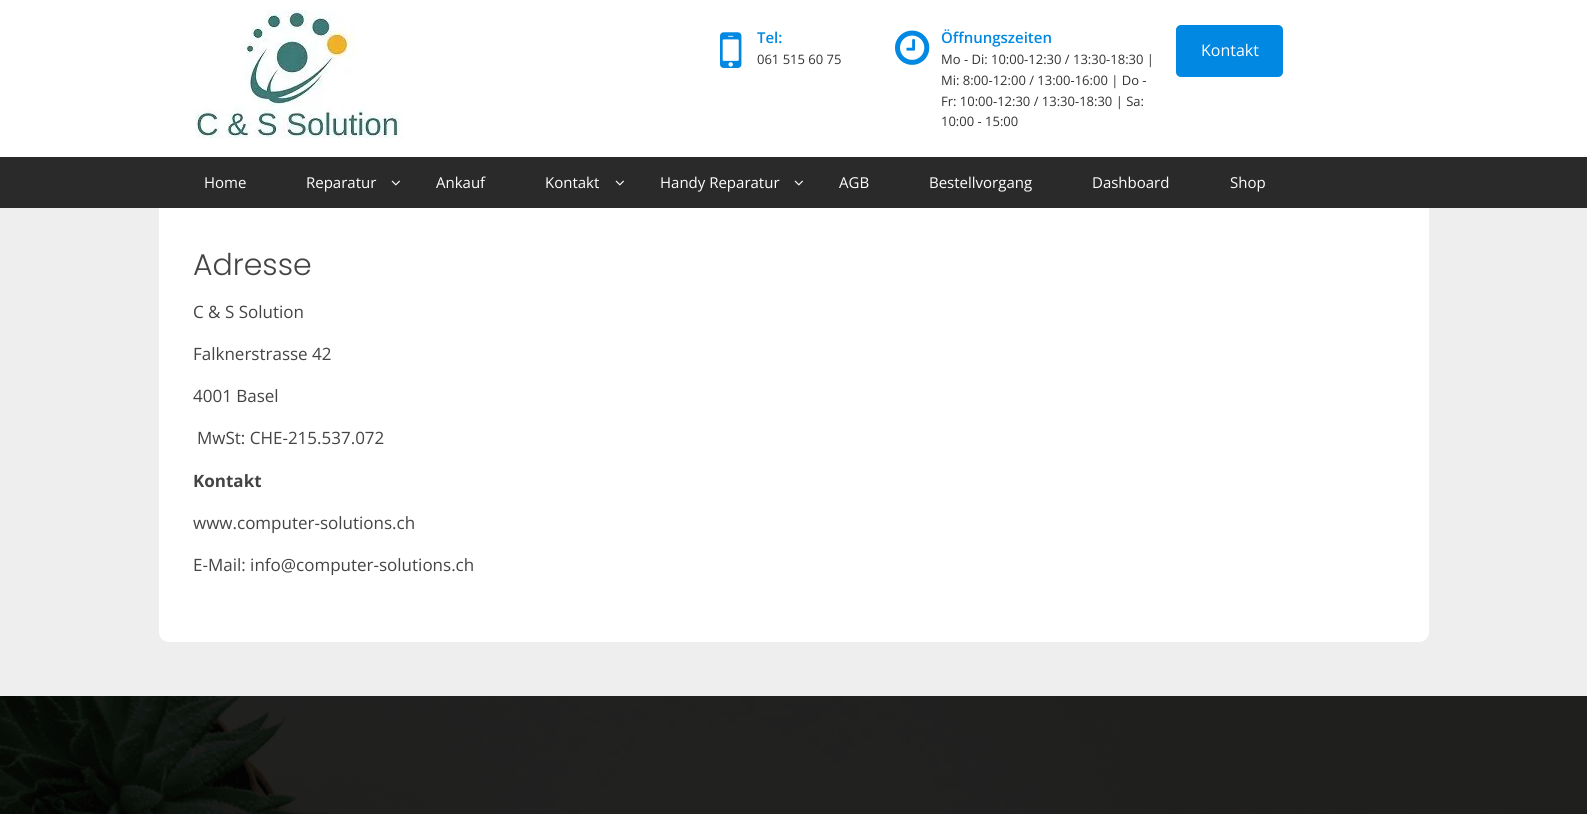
import math
import cairocffi as cairo

surface = cairo.ImageSurface(cairo.FORMAT_RGB24, 1587, 814)
cr = cairo.Context(surface)
options = cairo.FontOptions()
options.set_hint_metrics(cairo.HINT_METRICS_OFF)
options.set_hint_style(cairo.HINT_STYLE_NONE)
cr.set_font_options(options)
cr.set_miter_limit(4)


def use_color(code):
    cr.set_source_rgb(*(v / 255 for v in bytes.fromhex(code[-6:])))


def round_rect(x, y, w, h, r):
    cr.new_sub_path()
    for i, (u, v) in enumerate([(x + w - r, y + h - r), (x + r, y + h - r), (x + r, y + r), (x + w - r, y + r)]):
        cr.arc(u, v, r, i * math.pi / 2, (i + 1) * math.pi / 2)
    cr.close_path()


def picture(path, x, y, w, h):
    cr.save()
    cr.set_source_surface(cairo.ImageSurface.create_from_png(path), x, y)
    cr.rectangle(x, y, w, h)
    cr.fill()
    cr.restore()


use_color("#eeeeee")
cr.paint()
use_color("#ffffff")
round_rect(159, 137, 1270, 505, 10)
cr.fill()
cr.rectangle(0, 0, 1587, 157)
cr.fill()
picture("img1.png", 195, 10, 208, 128)
picture("img2.png", 720, 32, 22, 36)
cr.select_font_face("Open Sans SemiBold")
cr.set_font_size(15)
use_color("#0088e2")
cr.move_to(757, 43)
cr.show_text("Tel:")
cr.select_font_face("Open Sans")
cr.set_font_size(13)
use_color("#333333")
cr.move_to(757, 64)
cr.show_text("061 515 60 75")
picture("img3.png", 895, 30, 35, 35)
cr.select_font_face("Open Sans SemiBold")
cr.set_font_size(15)
use_color("#0088e2")
cr.move_to(941, 43)
cr.show_text("Öffnungszeiten")
cr.select_font_face("Open Sans")
cr.set_font_size(13)
use_color("#333333")
cr.move_to(941, 64)
cr.show_text("Mo - Di: 10:00-12:30 / 13:30-18:30 |")
cr.move_to(941, 85)
cr.show_text("Mi: 8:00-12:00 / 13:00-16:00 | Do -")
cr.move_to(941, 106)
cr.show_text("Fr: 10:00-12:30 / 13:30-18:30 | Sa:")
cr.move_to(941, 126)
cr.show_text("10:00 - 15:00")
use_color("#0088e2")
round_rect(1176, 25, 107, 52, 5)
cr.fill()
cr.set_font_size(16)
use_color("#ffffff")
cr.move_to(1201, 56)
cr.show_text("Kontakt")
use_color("#2a2a2a")
cr.rectangle(0, 157, 1587, 51)
cr.fill()
cr.set_font_size(15)
use_color("#ffffff")
cr.move_to(204, 188)
cr.show_text("Home")
cr.move_to(306, 188)
cr.show_text("Reparatur")
picture("img4.png", 391, 180, 9, 6)
cr.move_to(436, 188)
cr.show_text("Ankauf")
cr.move_to(545, 188)
cr.show_text("Kontakt")
picture("img4.png", 615, 180, 9, 6)
cr.move_to(660, 188)
cr.show_text("Handy Reparatur")
picture("img4.png", 794, 180, 9, 6)
cr.move_to(839, 188)
cr.show_text("AGB")
cr.move_to(929, 188)
cr.show_text("Bestellvorgang")
cr.move_to(1092, 188)
cr.show_text("Dashboard")
cr.move_to(1230, 188)
cr.show_text("Shop")
cr.select_font_face("Poppins Light")
cr.set_font_size(30)
use_color("#444444")
cr.move_to(193, 275)
cr.show_text("Adresse")
cr.select_font_face("Open Sans")
cr.set_font_size(17)
cr.move_to(193, 318)
cr.show_text("C & S Solution")
cr.move_to(193, 360)
cr.show_text("Falknerstrasse 42")
cr.move_to(193, 402)
cr.show_text("4001 Basel")
cr.move_to(197, 444)
cr.show_text("MwSt: CHE-215.537.072")
cr.select_font_face("Open Sans", cairo.FONT_SLANT_NORMAL, cairo.FONT_WEIGHT_BOLD)
cr.move_to(193, 487)
cr.show_text("Kontakt")
cr.select_font_face("Open Sans")
cr.move_to(193, 529)
cr.show_text("www.computer-solutions.ch")
cr.move_to(193, 571)
cr.show_text("E-Mail: info@computer-solutions.ch")
picture("img5.png", 0, 696, 1587, 118)
surface.write_to_png("result.png")
